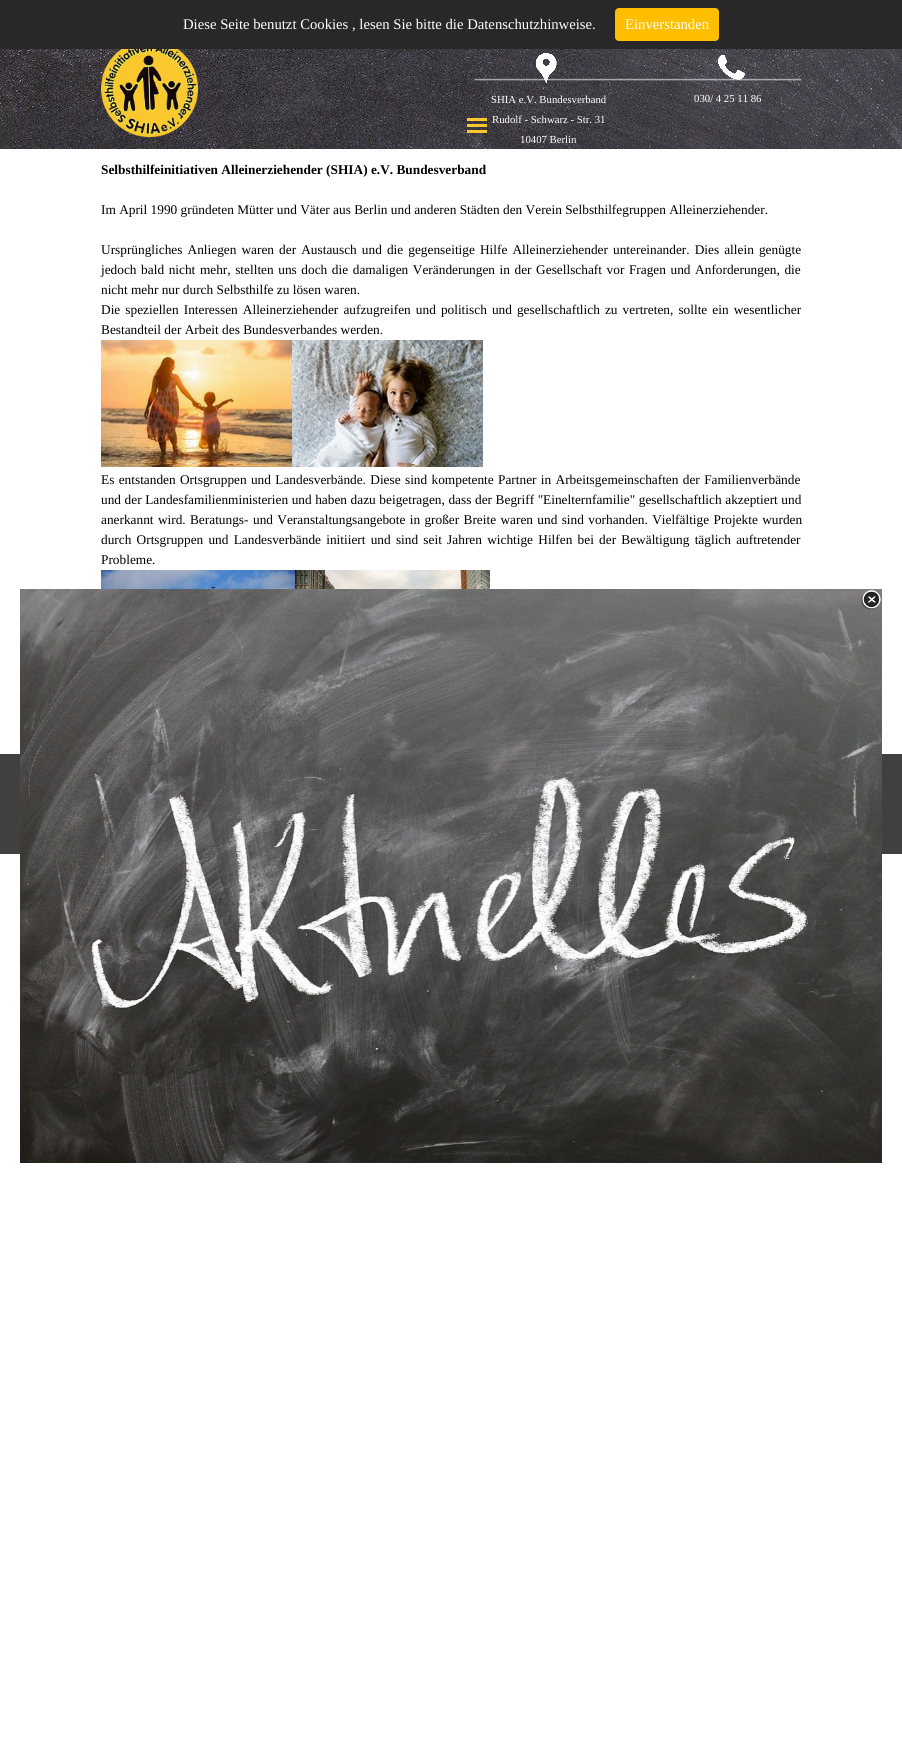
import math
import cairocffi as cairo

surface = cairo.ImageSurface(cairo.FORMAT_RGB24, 902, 1752)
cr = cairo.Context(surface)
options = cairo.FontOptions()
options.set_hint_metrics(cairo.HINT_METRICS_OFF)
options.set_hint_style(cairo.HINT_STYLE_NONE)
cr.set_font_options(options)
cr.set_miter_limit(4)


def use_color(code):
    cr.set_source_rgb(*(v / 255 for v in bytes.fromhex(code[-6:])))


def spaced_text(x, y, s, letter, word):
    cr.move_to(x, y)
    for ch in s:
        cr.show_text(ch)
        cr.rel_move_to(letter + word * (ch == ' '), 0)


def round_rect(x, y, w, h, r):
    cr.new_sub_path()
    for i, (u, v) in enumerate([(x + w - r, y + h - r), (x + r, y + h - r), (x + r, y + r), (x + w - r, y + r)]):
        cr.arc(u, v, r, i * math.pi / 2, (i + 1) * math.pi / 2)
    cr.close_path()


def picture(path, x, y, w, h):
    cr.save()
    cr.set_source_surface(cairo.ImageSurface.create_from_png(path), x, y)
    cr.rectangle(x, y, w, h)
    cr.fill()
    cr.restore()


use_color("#ffffff")
cr.paint()
use_color("#282828")
cr.rectangle(0, 0, 902, 49)
cr.fill()
cr.select_font_face("Liberation Serif")
cr.set_font_size(14.7)
use_color("#ffffff")
cr.move_to(183, 29)
cr.show_text("Diese Seite benutzt Cookies , lesen Sie bitte die Datenschutzhinweise.")
use_color("#ffbf00")
round_rect(615, 8, 104, 33, 4)
cr.fill()
use_color("#ffffff")
cr.move_to(625, 29)
cr.show_text("Einverstanden")
picture("img1.png", 0, 49, 902, 100)
picture("img2.png", 101, 49, 97, 88)
picture("img3.png", 536, 53, 21, 30)
picture("img4.png", 718, 55, 27, 25)
picture("img5.png", 473, 78, 329, 3)
use_color("#fac72f")
cr.rectangle(467, 118, 20, 3)
cr.fill()
cr.rectangle(467, 124, 20, 3)
cr.fill()
cr.rectangle(467, 130, 20, 3)
cr.fill()
cr.set_font_size(10.75)
use_color("#ffffff")
cr.move_to(491, 103)
cr.show_text("SHIA e.V. Bundesverband")
cr.move_to(492, 123)
cr.show_text("Rudolf - Schwarz - Str. 31")
cr.move_to(520, 143)
cr.show_text("10407 Berlin")
cr.move_to(694, 102)
cr.show_text("030/ 4 25 11 86")
cr.select_font_face("Liberation Serif", cairo.FONT_SLANT_NORMAL, cairo.FONT_WEIGHT_BOLD)
cr.set_font_size(13.33)
use_color("#000000")
cr.move_to(101, 174)
cr.show_text("Selbsthilfeinitiativen Alleinerziehender (SHIA) e.V. Bundesverband")
cr.select_font_face("Liberation Serif")
cr.move_to(101, 214)
cr.show_text("Im April 1990 gründeten Mütter und Väter aus Berlin und anderen Städten den Verein Selbsthilfegruppen Alleinerziehender.")
spaced_text(101, 254, "Ursprüngliches Anliegen waren der Austausch und die gegenseitige Hilfe Alleinerziehender untereinander. Dies allein genügte", 0, 1.75)
spaced_text(101, 274, "jedoch bald nicht mehr, stellten uns doch die damaligen Veränderungen in der Gesellschaft vor Fragen und Anforderungen, die", 0, 1.25)
cr.move_to(101, 294)
cr.show_text("nicht mehr nur durch Selbsthilfe zu lösen waren.")
spaced_text(101, 314, "Die speziellen Interessen Alleinerziehender aufzugreifen und politisch und gesellschaftlich zu vertreten, sollte ein wesentlicher", 0, 1.75)
cr.move_to(101, 334)
cr.show_text("Bestandteil der Arbeit des Bundesverbandes werden.")
picture("img6.png", 101, 340, 191, 127)
picture("img7.png", 292, 340, 191, 127)
spaced_text(101, 484, "Es entstanden Ortsgruppen und Landesverbände. Diese sind kompetente Partner in Arbeitsgemeinschaften der Familienverbände", 0, 1)
spaced_text(101, 504, "und der Landesfamilienministerien und haben dazu beigetragen, dass der Begriff \"Einelternfamilie\" gesellschaftlich akzeptiert und", 0, 0.25)
spaced_text(101, 524, "anerkannt wird. Beratungs-", 0, 1)
spaced_text(253, 524, "und Veranstaltungsangebote in großer Breite waren und sind vorhanden. Vielfältige Projekte wurden", 0, 1)
spaced_text(101, 544, "durch Ortsgruppen und Landesverbände initiiert und sind seit Jahren wichtige Hilfen bei der Bewältigung täglich auftretender", 0, 1.9)
cr.move_to(101, 564)
cr.show_text("Probleme.")
picture("img8.png", 101, 570, 194, 19)
picture("img9.png", 295, 570, 195, 19)
use_color("#404040")
cr.rectangle(0, 754, 902, 100)
cr.fill()
picture("img10.png", 20, 589, 862, 574)
picture("img11.png", 861, 590, 20, 20)
surface.write_to_png("result.png")
